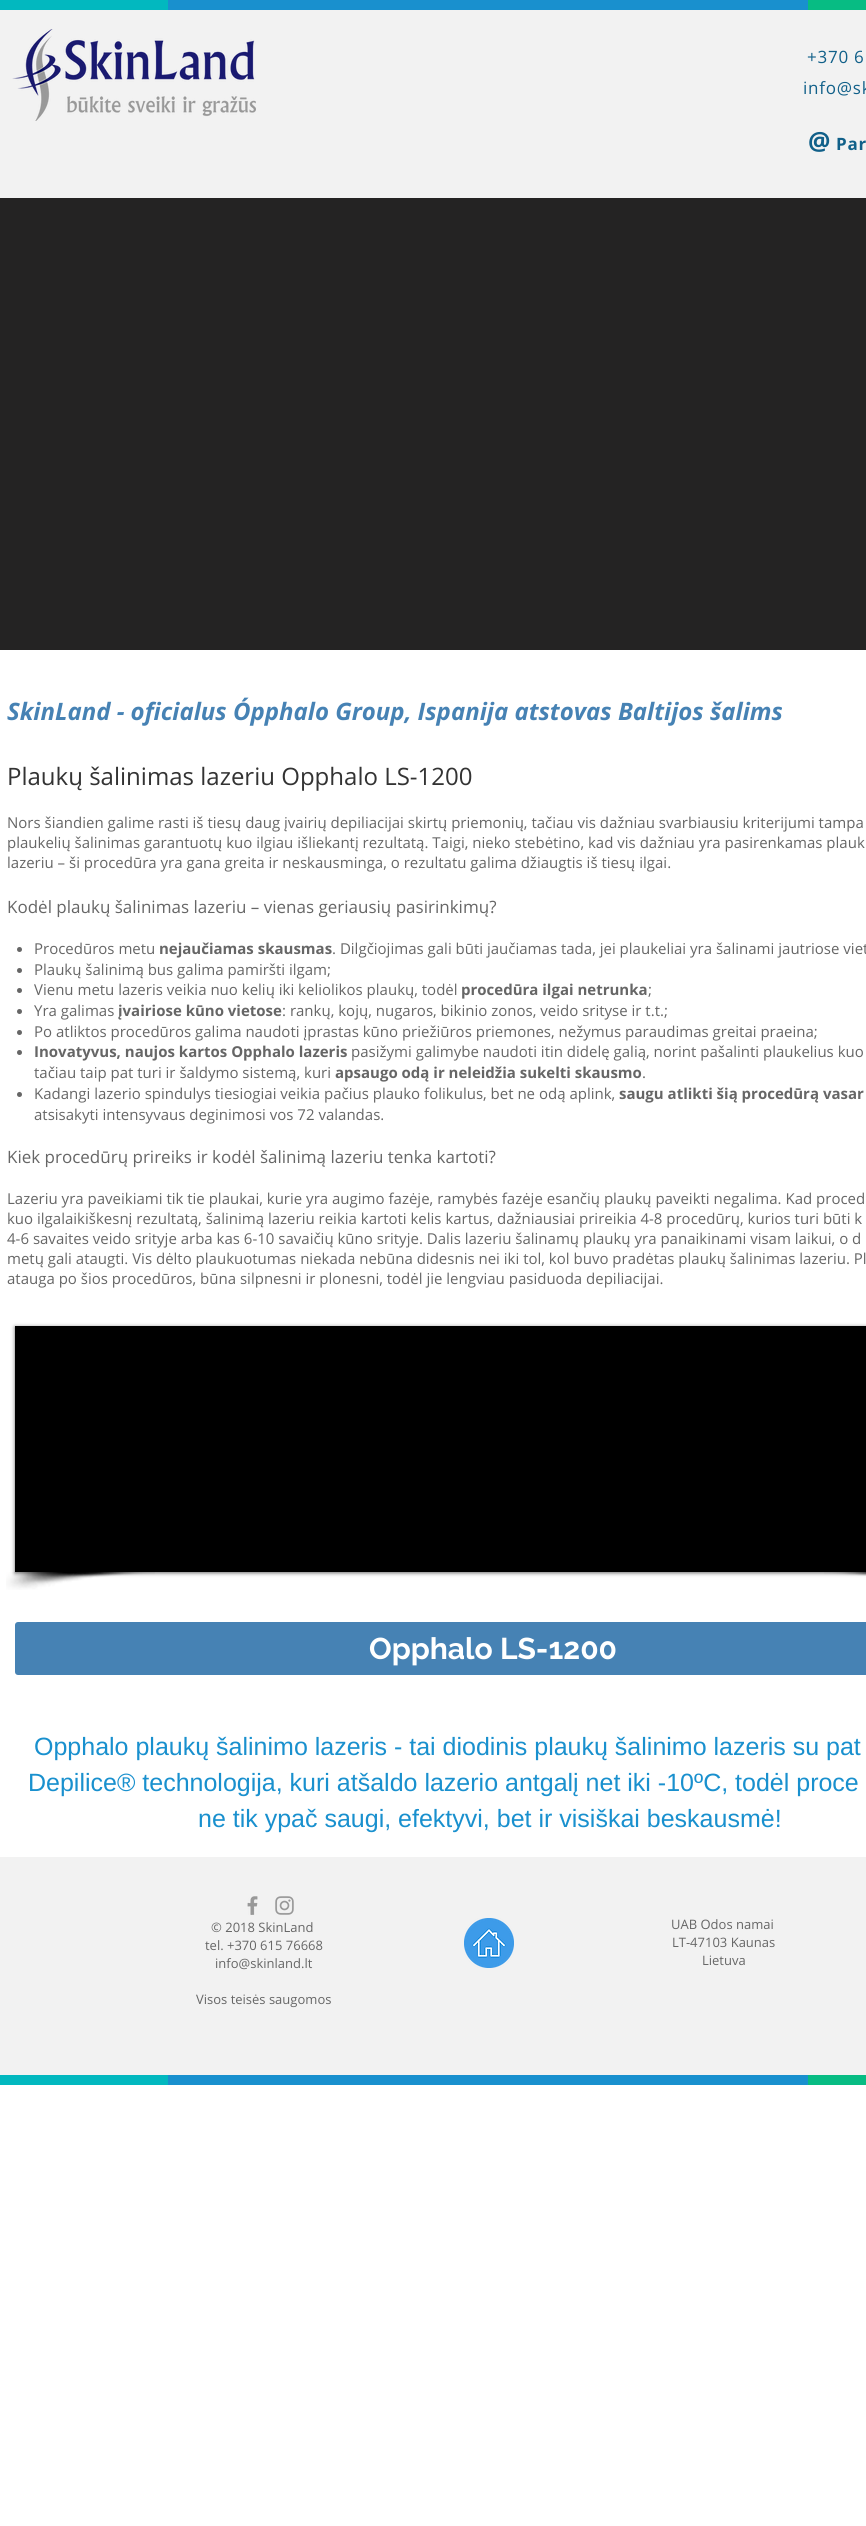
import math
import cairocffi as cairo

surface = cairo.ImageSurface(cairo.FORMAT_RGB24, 866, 2526)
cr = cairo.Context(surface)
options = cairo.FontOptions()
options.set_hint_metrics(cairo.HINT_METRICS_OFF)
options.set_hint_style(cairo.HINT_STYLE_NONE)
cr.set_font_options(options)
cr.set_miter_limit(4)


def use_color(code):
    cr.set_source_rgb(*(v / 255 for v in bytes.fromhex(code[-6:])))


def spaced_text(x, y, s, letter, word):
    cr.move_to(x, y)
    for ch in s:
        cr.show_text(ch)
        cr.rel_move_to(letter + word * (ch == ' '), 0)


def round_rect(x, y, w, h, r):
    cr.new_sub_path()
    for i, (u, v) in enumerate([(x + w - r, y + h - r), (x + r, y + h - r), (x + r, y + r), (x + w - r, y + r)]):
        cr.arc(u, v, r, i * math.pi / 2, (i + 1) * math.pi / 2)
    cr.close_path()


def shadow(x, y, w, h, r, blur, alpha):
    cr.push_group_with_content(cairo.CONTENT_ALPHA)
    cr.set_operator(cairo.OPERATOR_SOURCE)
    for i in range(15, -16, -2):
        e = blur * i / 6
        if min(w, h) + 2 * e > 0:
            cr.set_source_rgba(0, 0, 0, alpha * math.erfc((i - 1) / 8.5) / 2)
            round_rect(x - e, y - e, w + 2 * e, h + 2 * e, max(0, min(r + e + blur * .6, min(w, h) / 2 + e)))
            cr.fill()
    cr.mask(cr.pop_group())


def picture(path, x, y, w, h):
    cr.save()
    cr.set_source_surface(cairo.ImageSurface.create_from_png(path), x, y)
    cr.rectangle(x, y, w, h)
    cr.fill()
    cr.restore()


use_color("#ffffff")
cr.paint()
use_color("#f2f2f2")
cr.rectangle(0, 10, 866, 188)
cr.fill()
use_color("#02b8bf")
cr.rectangle(0, 0, 168, 10)
cr.fill()
use_color("#1990ce")
cr.rectangle(168, 0, 640, 10)
cr.fill()
use_color("#07bc83")
cr.rectangle(808, 0, 58, 10)
cr.fill()
picture("img1.png", 12, 29, 244, 92)
cr.select_font_face("Open Sans")
cr.set_font_size(17)
use_color("#116089")
spaced_text(807, 63, "+370 6", 0.75, 0)
spaced_text(803, 94, "info@sk", 0.75, 0)
cr.select_font_face("Open Sans", cairo.FONT_SLANT_NORMAL, cairo.FONT_WEIGHT_BOLD)
cr.set_font_size(25)
spaced_text(808, 150, "@", 0.75, 0)
cr.set_font_size(17)
spaced_text(836, 150, "Par", 0.75, 0)
use_color("#242323")
cr.rectangle(0, 198, 866, 452)
cr.fill()
cr.select_font_face("Open Sans", cairo.FONT_SLANT_ITALIC, cairo.FONT_WEIGHT_BOLD)
cr.set_font_size(24)
use_color("#4682b4")
cr.move_to(7, 720)
cr.show_text("SkinLand - oficialus Ópphalo Group, Ispanija atstovas Baltijos šalims")
cr.select_font_face("Open Sans")
use_color("#333333")
cr.move_to(7, 785)
cr.show_text("Plaukų šalinimas lazeriu Opphalo LS-1200")
cr.set_font_size(15)
use_color("#666666")
cr.move_to(7, 828)
cr.show_text("Nors šiandien galime rasti iš tiesų daug įvairių depiliacijai skirtų priemonių, tačiau vis dažniau svarbiausiu kriterijumi tampa")
cr.move_to(7, 848)
cr.show_text("plaukelių šalinimas garantuotų kuo ilgiau išliekantį rezultatą. Taigi, nieko stebėtino, kad vis dažniau yra pasirenkamas plauk")
cr.move_to(7, 868)
cr.show_text("lazeriu – ši procedūra yra gana greita ir neskausminga, o rezultatu galima džiaugtis iš tiesų ilgai.")
cr.set_font_size(17)
cr.move_to(7, 913)
cr.show_text("Kodėl plaukų šalinimas lazeriu – vienas geriausių pasirinkimų?")
cr.new_path()
cr.arc(19.5, 949.5, 2.5, 0, 2 * math.pi)
cr.fill()
cr.set_font_size(15)
cr.move_to(34, 954)
cr.show_text("Procedūros metu")
cr.select_font_face("Open Sans", cairo.FONT_SLANT_NORMAL, cairo.FONT_WEIGHT_BOLD)
cr.move_to(159, 954)
cr.show_text("nejaučiamas skausmas")
cr.select_font_face("Open Sans")
cr.move_to(332, 954)
cr.show_text(". Dilgčiojimas gali būti jaučiamas tada, jei plaukeliai yra šalinami jautriose viet")
cr.new_path()
cr.arc(19.5, 970.5, 2.5, 0, 2 * math.pi)
cr.fill()
cr.move_to(34, 975)
cr.show_text("Plaukų šalinimą bus galima pamiršti ilgam;")
cr.new_path()
cr.arc(19.5, 990.5, 2.5, 0, 2 * math.pi)
cr.fill()
cr.move_to(34, 995)
cr.show_text("Vienu metu lazeris veikia nuo kelių iki keliolikos plaukų, todėl")
cr.select_font_face("Open Sans", cairo.FONT_SLANT_NORMAL, cairo.FONT_WEIGHT_BOLD)
cr.move_to(461, 995)
cr.show_text("procedūra ilgai netrunka")
cr.select_font_face("Open Sans")
cr.move_to(648, 995)
cr.show_text(";")
cr.new_path()
cr.arc(19.5, 1011.5, 2.5, 0, 2 * math.pi)
cr.fill()
cr.move_to(34, 1016)
cr.show_text("Yra galimas")
cr.select_font_face("Open Sans", cairo.FONT_SLANT_NORMAL, cairo.FONT_WEIGHT_BOLD)
cr.move_to(118, 1016)
cr.show_text("įvairiose kūno vietose")
cr.select_font_face("Open Sans")
cr.move_to(282, 1016)
cr.show_text(": rankų, kojų, nugaros, bikinio zonos, veido srityse ir t.t.;")
cr.new_path()
cr.arc(19.5, 1032.5, 2.5, 0, 2 * math.pi)
cr.fill()
cr.move_to(34, 1037)
cr.show_text("Po atliktos procedūros galima naudoti įprastas kūno priežiūros priemones, nežymus paraudimas greitai praeina;")
cr.new_path()
cr.arc(19.5, 1052.5, 2.5, 0, 2 * math.pi)
cr.fill()
cr.select_font_face("Open Sans", cairo.FONT_SLANT_NORMAL, cairo.FONT_WEIGHT_BOLD)
cr.move_to(34, 1057)
cr.show_text("Inovatyvus, naujos kartos Opphalo lazeris")
cr.select_font_face("Open Sans")
cr.move_to(351, 1057)
cr.show_text("pasižymi galimybe naudoti itin didelę galią, norint pašalinti plaukelius kuo")
cr.move_to(34, 1078)
cr.show_text("tačiau taip pat turi ir šaldymo sistemą, kuri")
cr.select_font_face("Open Sans", cairo.FONT_SLANT_NORMAL, cairo.FONT_WEIGHT_BOLD)
cr.move_to(335, 1078)
cr.show_text("apsaugo odą ir neleidžia sukelti skausmo")
cr.select_font_face("Open Sans")
cr.move_to(642, 1078)
cr.show_text(".")
cr.new_path()
cr.arc(19.5, 1094.5, 2.5, 0, 2 * math.pi)
cr.fill()
cr.move_to(34, 1099)
cr.show_text("Kadangi lazerio spindulys tiesiogiai veikia pačius plauko folikulus, bet ne odą aplink,")
cr.select_font_face("Open Sans", cairo.FONT_SLANT_NORMAL, cairo.FONT_WEIGHT_BOLD)
cr.move_to(619, 1099)
cr.show_text("saugu atlikti šią procedūrą vasar")
cr.select_font_face("Open Sans")
cr.move_to(34, 1120)
cr.show_text("atsisakyti intensyvaus deginimosi vos 72 valandas.")
cr.set_font_size(17)
cr.move_to(7, 1163)
cr.show_text("Kiek procedūrų prireiks ir kodėl šalinimą lazeriu tenka kartoti?")
cr.set_font_size(15)
cr.move_to(7, 1204)
cr.show_text("Lazeriu yra paveikiami tik tie plaukai, kurie yra augimo fazėje, ramybės fazėje esančių plaukų paveikti negalima. Kad proced")
cr.move_to(7, 1224)
cr.show_text("kuo ilgalaikiškesnį rezultatą, šalinimą lazeriu reikia kartoti kelis kartus, dažniausiai prireikia 4-8 procedūrų, kurios turi būti k")
cr.move_to(7, 1244)
cr.show_text("4-6 savaites veido srityje arba kas 6-10 savaičių kūno srityje. Dalis lazeriu šalinamų plaukų yra panaikinami visam laikui, o d")
cr.move_to(7, 1264)
cr.show_text("metų gali ataugti. Vis dėlto plaukuotumas niekada nebūna didesnis nei iki tol, kol buvo pradėtas plaukų šalinimas lazeriu. Pl")
cr.move_to(7, 1284)
cr.show_text("atauga po šios procedūros, būna silpnesni ir plonesni, todėl jie lengviau pasiduoda depiliacijai.")
use_color("#000000")
shadow(15, 1327, 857, 246, 0, 2, 0.6)
use_color("#000000")
cr.rectangle(15, 1326, 851, 246)
cr.fill()
picture("img2.png", 6, 1572, 149, 18)
picture("img3.png", 824, 1572, 42, 4)
use_color("#4682b4")
round_rect(15, 1622, 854, 53, 3)
cr.fill()
cr.select_font_face("Raleway", cairo.FONT_SLANT_NORMAL, cairo.FONT_WEIGHT_BOLD)
cr.set_font_size(30)
use_color("#ffffff")
cr.move_to(369, 1659)
cr.show_text("Opphalo LS-1200")
cr.select_font_face("Liberation Sans")
cr.set_font_size(25)
use_color("#1990ce")
cr.move_to(34, 1755)
cr.show_text("Opphalo plaukų šalinimo lazeris - tai diodinis plaukų šalinimo lazeris su pat")
cr.move_to(28, 1791)
cr.show_text("Depilice® technologija, kuri atšaldo lazerio antgalį net iki -10ºC, todėl proce")
cr.move_to(198, 1827)
cr.show_text("ne tik ypač saugi, efektyvi, bet ir visiškai beskausmė!")
use_color("#f2f2f2")
cr.rectangle(0, 1857, 866, 218)
cr.fill()
picture("img4.png", 247, 1896, 11, 19)
picture("img5.png", 275, 1896, 19, 19)
cr.select_font_face("Open Sans")
cr.set_font_size(13)
use_color("#666666")
cr.move_to(211, 1932)
cr.show_text("© 2018 SkinLand")
cr.move_to(205, 1950)
cr.show_text("tel. +370 615 76668")
cr.move_to(215, 1968)
cr.show_text("info@skinland.lt")
cr.move_to(196, 2004)
cr.show_text("Visos teisės saugomos")
picture("img6.png", 464, 1918, 50, 50)
cr.move_to(671, 1929)
cr.show_text("UAB Odos namai")
cr.move_to(672, 1947)
cr.show_text("LT-47103 Kaunas")
cr.move_to(702, 1965)
cr.show_text("Lietuva")
use_color("#02b8bf")
cr.rectangle(0, 2075, 168, 10)
cr.fill()
use_color("#1990ce")
cr.rectangle(168, 2075, 640, 10)
cr.fill()
use_color("#07bc83")
cr.rectangle(808, 2075, 58, 10)
cr.fill()
surface.write_to_png("result.png")
